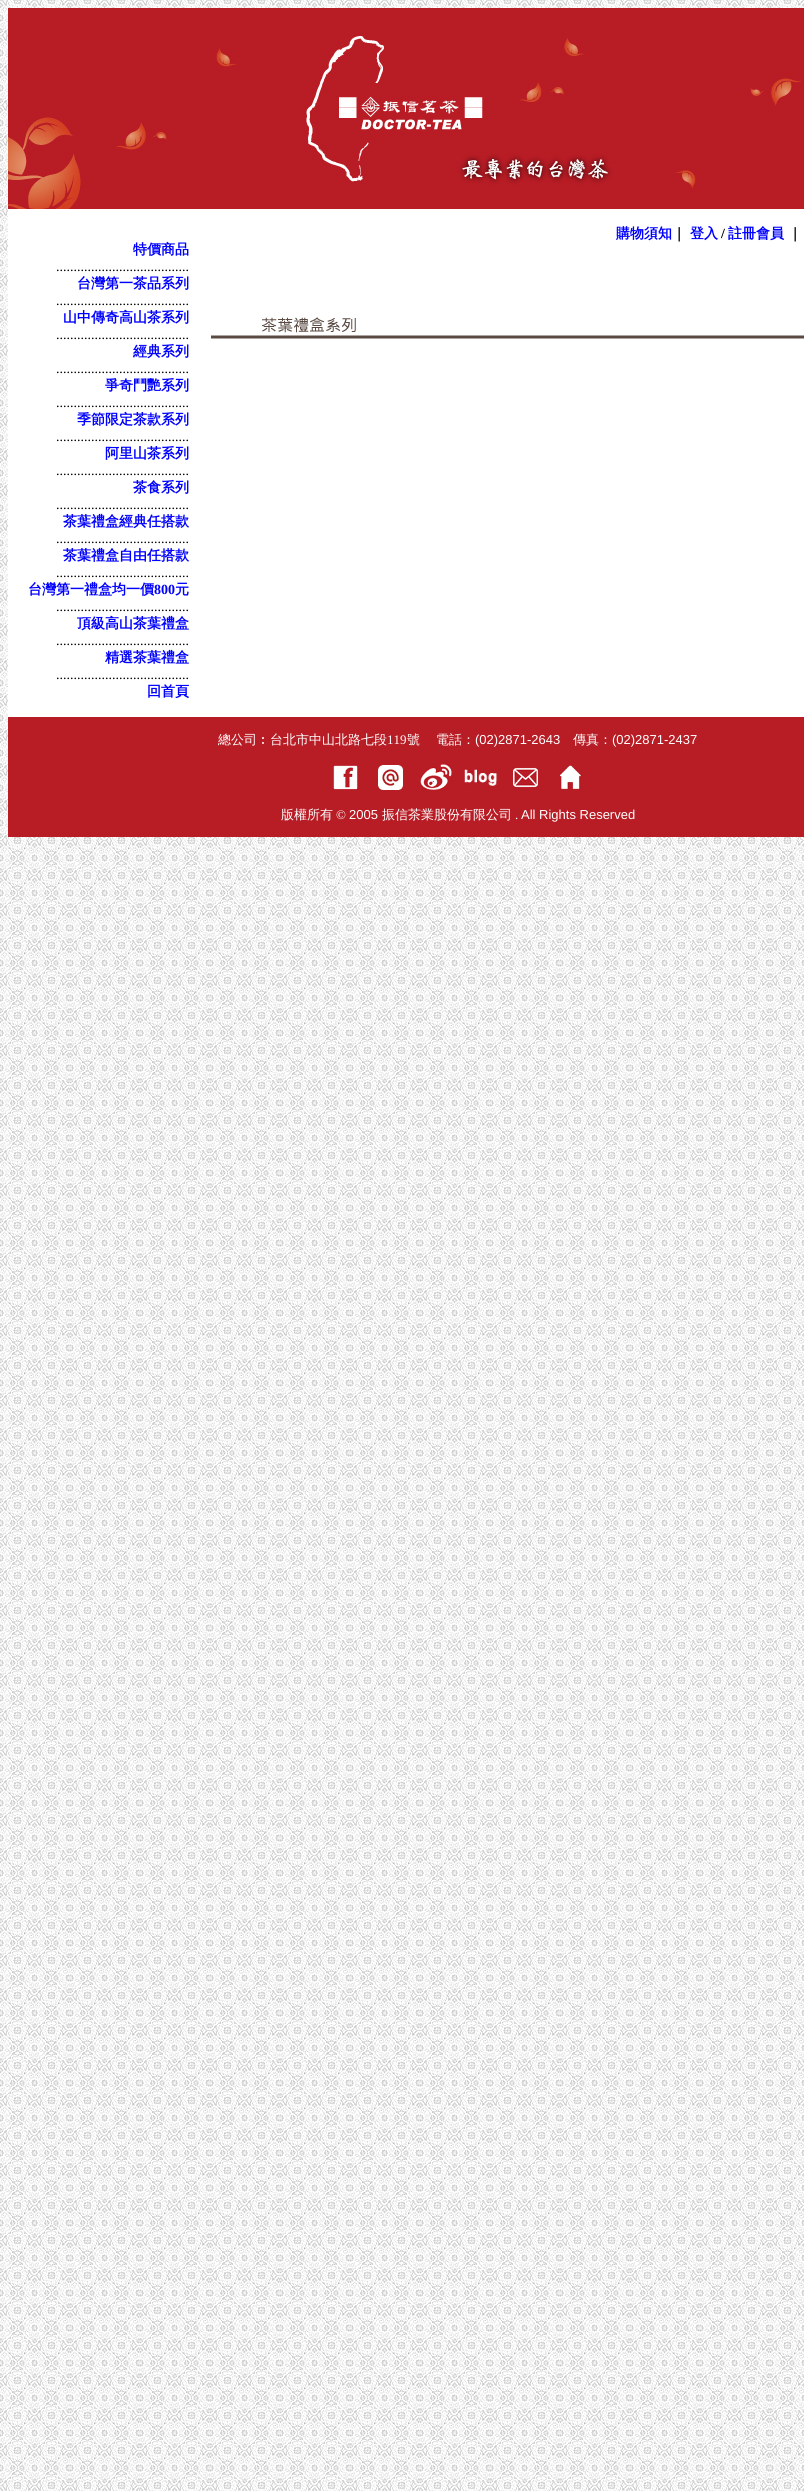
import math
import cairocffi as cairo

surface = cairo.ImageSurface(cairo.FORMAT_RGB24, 804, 2491)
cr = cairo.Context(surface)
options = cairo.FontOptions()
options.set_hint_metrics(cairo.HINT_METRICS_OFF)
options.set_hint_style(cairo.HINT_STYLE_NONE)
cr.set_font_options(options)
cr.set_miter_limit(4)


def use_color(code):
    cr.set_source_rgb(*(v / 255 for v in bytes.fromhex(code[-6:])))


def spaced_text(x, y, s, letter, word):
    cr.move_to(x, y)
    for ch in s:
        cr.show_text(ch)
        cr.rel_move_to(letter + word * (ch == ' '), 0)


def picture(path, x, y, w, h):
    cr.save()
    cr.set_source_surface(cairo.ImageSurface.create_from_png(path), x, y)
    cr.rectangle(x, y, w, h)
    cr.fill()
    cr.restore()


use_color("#ffffff")
cr.paint()
picture("img1.png", 0, 0, 804, 2491)
picture("img2.png", 8, 8, 796, 201)
use_color("#ffffff")
cr.rectangle(8, 209, 796, 16)
cr.fill()
cr.rectangle(8, 225, 796, 492)
cr.fill()
cr.select_font_face("WenQuanYi Zen Hei", cairo.FONT_SLANT_NORMAL, cairo.FONT_WEIGHT_BOLD)
cr.set_font_size(14)
use_color("#0000ff")
cr.move_to(616, 238)
cr.show_text("購物須知")
use_color("#000000")
cr.move_to(672, 238)
cr.show_text("｜")
use_color("#0000ff")
cr.move_to(690, 238)
cr.show_text("登入")
cr.select_font_face("Liberation Serif", cairo.FONT_SLANT_NORMAL, cairo.FONT_WEIGHT_BOLD)
use_color("#000000")
cr.move_to(721, 238)
cr.show_text("/")
cr.select_font_face("WenQuanYi Zen Hei", cairo.FONT_SLANT_NORMAL, cairo.FONT_WEIGHT_BOLD)
use_color("#0000ff")
cr.move_to(728, 238)
cr.show_text("註冊會員")
use_color("#000000")
cr.move_to(788, 238)
cr.show_text("｜")
picture("img3.png", 211, 317, 593, 22)
use_color("#0000ff")
cr.move_to(133, 254)
cr.show_text("特價商品")
cr.select_font_face("Liberation Serif")
use_color("#000000")
cr.move_to(56, 271)
cr.show_text("......................................")
cr.select_font_face("WenQuanYi Zen Hei", cairo.FONT_SLANT_NORMAL, cairo.FONT_WEIGHT_BOLD)
use_color("#0000ff")
cr.move_to(77, 288)
cr.show_text("台灣第一茶品系列")
cr.select_font_face("Liberation Serif")
use_color("#000000")
cr.move_to(56, 305)
cr.show_text("......................................")
cr.select_font_face("WenQuanYi Zen Hei", cairo.FONT_SLANT_NORMAL, cairo.FONT_WEIGHT_BOLD)
use_color("#0000ff")
cr.move_to(63, 322)
cr.show_text("山中傳奇高山茶系列")
cr.select_font_face("Liberation Serif")
use_color("#000000")
cr.move_to(56, 339)
cr.show_text("......................................")
cr.select_font_face("WenQuanYi Zen Hei", cairo.FONT_SLANT_NORMAL, cairo.FONT_WEIGHT_BOLD)
use_color("#0000ff")
cr.move_to(133, 356)
cr.show_text("經典系列")
cr.select_font_face("Liberation Serif")
use_color("#000000")
cr.move_to(56, 373)
cr.show_text("......................................")
cr.select_font_face("WenQuanYi Zen Hei", cairo.FONT_SLANT_NORMAL, cairo.FONT_WEIGHT_BOLD)
use_color("#0000ff")
cr.move_to(105, 390)
cr.show_text("爭奇鬥艷系列")
cr.select_font_face("Liberation Serif")
use_color("#000000")
cr.move_to(56, 407)
cr.show_text("......................................")
cr.select_font_face("WenQuanYi Zen Hei", cairo.FONT_SLANT_NORMAL, cairo.FONT_WEIGHT_BOLD)
use_color("#0000ff")
cr.move_to(77, 424)
cr.show_text("季節限定茶款系列")
cr.select_font_face("Liberation Serif")
use_color("#000000")
cr.move_to(56, 441)
cr.show_text("......................................")
cr.select_font_face("WenQuanYi Zen Hei", cairo.FONT_SLANT_NORMAL, cairo.FONT_WEIGHT_BOLD)
use_color("#0000ff")
cr.move_to(105, 458)
cr.show_text("阿里山茶系列")
cr.select_font_face("Liberation Serif")
use_color("#000000")
cr.move_to(56, 475)
cr.show_text("......................................")
cr.select_font_face("WenQuanYi Zen Hei", cairo.FONT_SLANT_NORMAL, cairo.FONT_WEIGHT_BOLD)
use_color("#0000ff")
cr.move_to(133, 492)
cr.show_text("茶食系列")
cr.select_font_face("Liberation Serif")
use_color("#000000")
cr.move_to(56, 509)
cr.show_text("......................................")
cr.select_font_face("WenQuanYi Zen Hei", cairo.FONT_SLANT_NORMAL, cairo.FONT_WEIGHT_BOLD)
use_color("#0000ff")
cr.move_to(63, 526)
cr.show_text("茶葉禮盒經典任搭款")
cr.select_font_face("Liberation Serif")
use_color("#000000")
cr.move_to(56, 543)
cr.show_text("......................................")
cr.select_font_face("WenQuanYi Zen Hei", cairo.FONT_SLANT_NORMAL, cairo.FONT_WEIGHT_BOLD)
use_color("#0000ff")
cr.move_to(63, 560)
cr.show_text("茶葉禮盒自由任搭款")
cr.select_font_face("Liberation Serif")
use_color("#000000")
cr.move_to(56, 577)
cr.show_text("......................................")
cr.select_font_face("WenQuanYi Zen Hei", cairo.FONT_SLANT_NORMAL, cairo.FONT_WEIGHT_BOLD)
use_color("#0000ff")
cr.move_to(28, 594)
cr.show_text("台灣第一禮盒均一價")
cr.select_font_face("Liberation Serif", cairo.FONT_SLANT_NORMAL, cairo.FONT_WEIGHT_BOLD)
cr.move_to(154, 594)
cr.show_text("800")
cr.select_font_face("WenQuanYi Zen Hei", cairo.FONT_SLANT_NORMAL, cairo.FONT_WEIGHT_BOLD)
cr.move_to(175, 594)
cr.show_text("元")
cr.select_font_face("Liberation Serif")
use_color("#000000")
cr.move_to(56, 611)
cr.show_text("......................................")
cr.select_font_face("WenQuanYi Zen Hei", cairo.FONT_SLANT_NORMAL, cairo.FONT_WEIGHT_BOLD)
use_color("#0000ff")
cr.move_to(77, 628)
cr.show_text("頂級高山茶葉禮盒")
cr.select_font_face("Liberation Serif")
use_color("#000000")
cr.move_to(56, 645)
cr.show_text("......................................")
cr.select_font_face("WenQuanYi Zen Hei", cairo.FONT_SLANT_NORMAL, cairo.FONT_WEIGHT_BOLD)
use_color("#0000ff")
cr.move_to(105, 662)
cr.show_text("精選茶葉禮盒")
cr.select_font_face("Liberation Serif")
use_color("#000000")
cr.move_to(56, 679)
cr.show_text("......................................")
cr.select_font_face("WenQuanYi Zen Hei", cairo.FONT_SLANT_NORMAL, cairo.FONT_WEIGHT_BOLD)
use_color("#0000ff")
cr.move_to(147, 696)
cr.show_text("回首頁")
use_color("#b81c25")
cr.rectangle(8, 717, 796, 120)
cr.fill()
cr.select_font_face("WenQuanYi Zen Hei Medium")
cr.set_font_size(13)
use_color("#ffffff")
cr.move_to(218, 744)
cr.show_text("總公司︰台北市中山北路七段")
cr.select_font_face("Liberation Serif")
cr.move_to(387, 744)
cr.show_text("119")
cr.select_font_face("WenQuanYi Zen Hei Medium")
spaced_text(407, 744, "號 　電話：", 0, -1)
cr.select_font_face("Liberation Sans")
cr.move_to(475, 744)
cr.show_text("(02)2871-2643")
cr.select_font_face("WenQuanYi Zen Hei Medium")
cr.move_to(573, 744)
cr.show_text("傳真：")
cr.select_font_face("Liberation Sans")
cr.move_to(612, 744)
cr.show_text("(02)2871-2437")
picture("img4.png", 333, 765, 25, 25)
picture("img5.png", 378, 765, 25, 25)
picture("img6.png", 420, 764, 32, 26)
picture("img7.png", 464, 769, 34, 17)
picture("img8.png", 513, 767, 25, 21)
picture("img9.png", 559, 765, 23, 24)
cr.select_font_face("WenQuanYi Zen Hei Medium")
cr.move_to(281, 819)
cr.show_text("版權所有")
cr.select_font_face("Liberation Serif")
cr.move_to(336, 819)
cr.show_text("©")
cr.select_font_face("Liberation Sans")
cr.move_to(349, 819)
cr.show_text("2005")
cr.select_font_face("WenQuanYi Zen Hei Medium")
cr.move_to(382, 819)
cr.show_text("振信茶業股份有限公司")
cr.select_font_face("Liberation Serif")
cr.move_to(515, 819)
cr.show_text(".")
cr.select_font_face("Liberation Sans")
cr.move_to(521, 819)
cr.show_text("All Rights Reserved")
surface.write_to_png("result.png")
